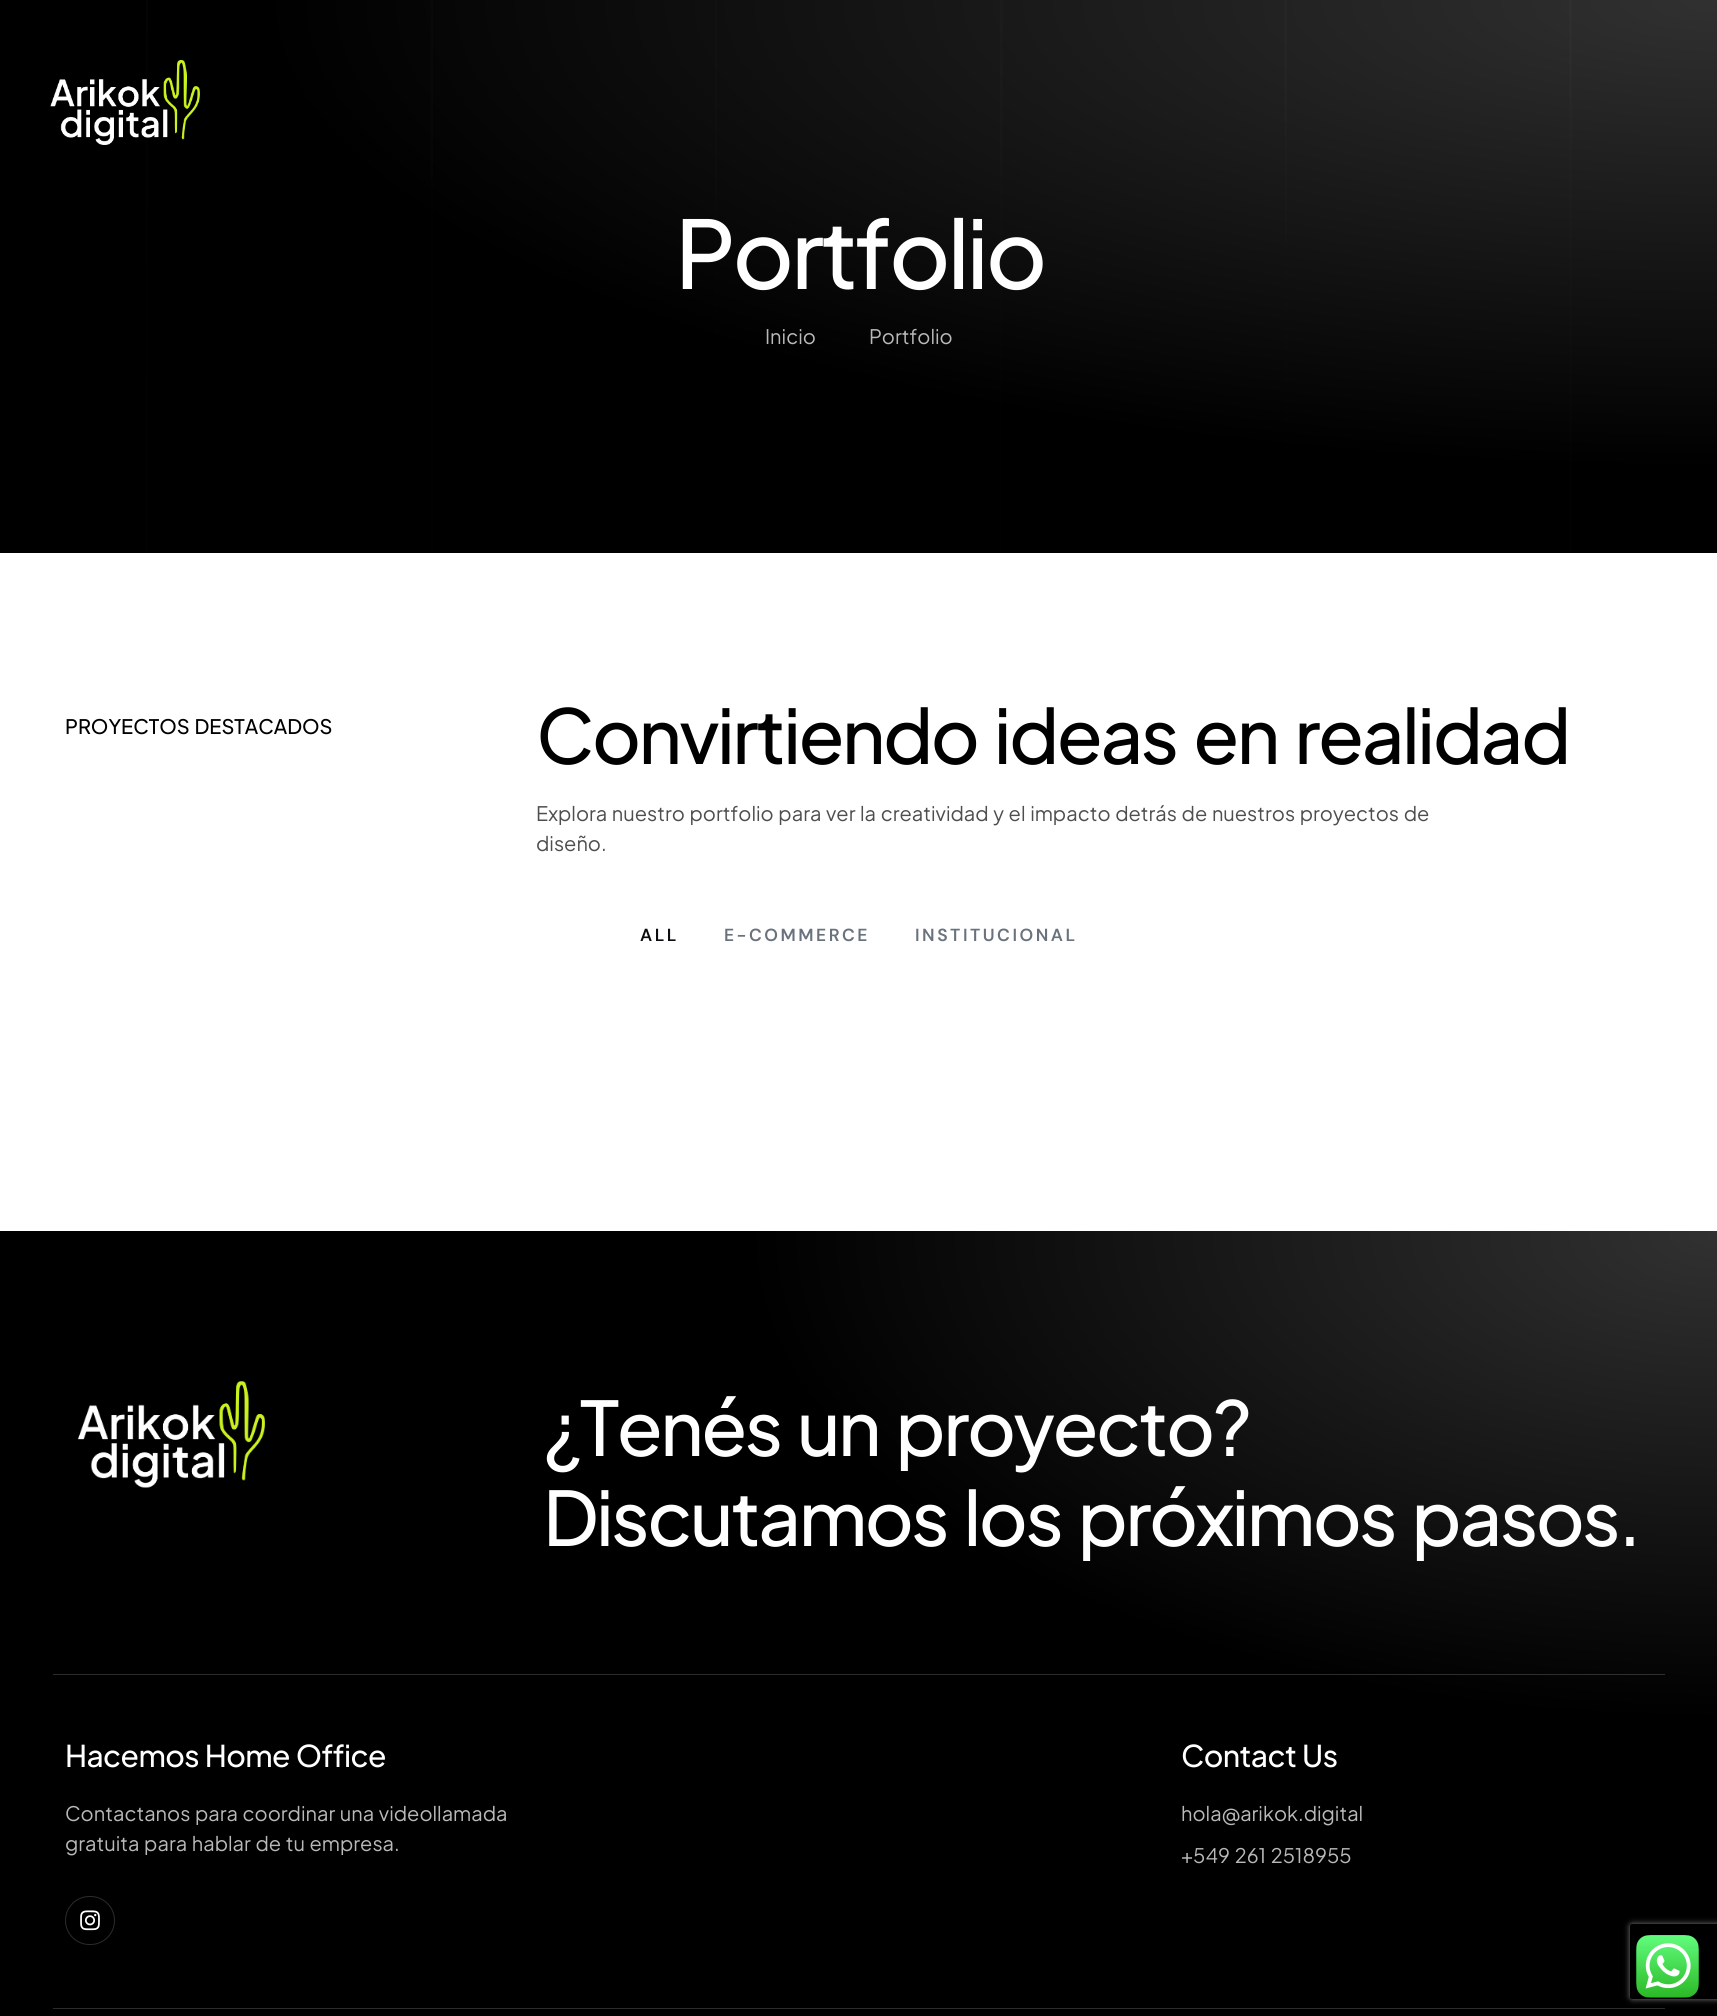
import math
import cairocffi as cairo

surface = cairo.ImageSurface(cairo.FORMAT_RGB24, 1717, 2016)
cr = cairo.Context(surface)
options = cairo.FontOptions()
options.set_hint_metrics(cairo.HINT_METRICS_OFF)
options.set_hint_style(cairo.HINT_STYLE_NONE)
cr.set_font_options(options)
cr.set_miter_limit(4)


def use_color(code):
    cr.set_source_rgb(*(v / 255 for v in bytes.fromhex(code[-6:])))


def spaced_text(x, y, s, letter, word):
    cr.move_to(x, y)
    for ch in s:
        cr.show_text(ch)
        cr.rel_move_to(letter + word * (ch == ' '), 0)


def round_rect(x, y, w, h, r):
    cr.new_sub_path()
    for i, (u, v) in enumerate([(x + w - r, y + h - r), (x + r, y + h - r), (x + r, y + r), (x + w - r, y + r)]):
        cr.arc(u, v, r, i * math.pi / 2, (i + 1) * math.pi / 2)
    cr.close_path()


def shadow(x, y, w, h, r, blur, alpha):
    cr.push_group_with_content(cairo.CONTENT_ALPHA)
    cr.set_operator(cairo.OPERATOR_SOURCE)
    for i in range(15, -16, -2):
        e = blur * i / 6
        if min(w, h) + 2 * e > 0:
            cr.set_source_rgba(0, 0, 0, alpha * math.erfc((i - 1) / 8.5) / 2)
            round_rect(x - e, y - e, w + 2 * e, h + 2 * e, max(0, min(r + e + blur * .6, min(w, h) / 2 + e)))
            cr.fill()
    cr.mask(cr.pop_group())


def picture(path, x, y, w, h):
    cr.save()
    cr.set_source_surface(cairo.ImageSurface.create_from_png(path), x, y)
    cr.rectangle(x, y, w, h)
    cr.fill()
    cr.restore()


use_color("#ffffff")
cr.paint()
use_color("#000000")
cr.rectangle(0, 0, 1717, 553)
cr.fill()
picture("img2.png", 146, 0, 1426, 552)
gradient = cairo.RadialGradient(0, 0, 0, 0, 0, 1)
gradient.set_matrix(cairo.Matrix(1 / 2429, 0, 0, 1 / 781, -1 * 1718 / 2429, -1 * 0 / 781))
gradient.add_color_stop_rgba(0, 0.239, 0.239, 0.239, 0.8)
gradient.add_color_stop_rgba(0.6, 0, 0, 0, 0.8)
cr.set_source(gradient)
cr.rectangle(146, 0, 1571, 552)
cr.fill()
picture("img1.png", 50, 60, 150, 85)
cr.select_font_face("Plus Jakarta Sans Medium")
cr.set_font_size(94)
use_color("#ffffff")
spaced_text(675, 289, "Portfolio", -3.1, 0)
cr.select_font_face("Plus Jakarta Sans")
cr.set_font_size(20)
use_color("#b9b9b9")
cr.move_to(765, 344)
cr.show_text("Inicio")
cr.move_to(869, 344)
cr.show_text("Portfolio")
cr.select_font_face("Plus Jakarta Sans Medium")
use_color("#000000")
spaced_text(65, 734, "PROYECTOS DESTACADOS", 0, 1.25)
cr.set_font_size(75)
spaced_text(536, 764, "Convirtiendo ideas en realidad", -2.5, 6)
cr.select_font_face("Plus Jakarta Sans")
cr.set_font_size(20)
use_color("#4e4e4e")
spaced_text(536, 821, "Explora nuestro portfolio para ver la creatividad y el impacto detrás de nuestros proyectos de", 0, 1.25)
cr.move_to(536, 851)
cr.show_text("diseño.")
cr.select_font_face("DM Sans SemiBold")
cr.set_font_size(17.5)
use_color("#0c0d0e")
spaced_text(640, 941, "ALL", 2.5, 0)
use_color("#69727d")
spaced_text(724, 941, "E-COMMERCE", 2.5, 0)
spaced_text(915, 941, "INSTITUCIONAL", 2.5, 0)
gradient = cairo.RadialGradient(0, 0, 0, 0, 0, 1)
gradient.set_matrix(cairo.Matrix(1 / 2429, 0, 0, 1 / 1223, -1 * 1718 / 2429, -1 * 1231 / 1223))
gradient.add_color_stop_rgba(0, 0.192, 0.192, 0.192, 1)
gradient.add_color_stop_rgba(0.4, 0, 0, 0, 1)
cr.set_source(gradient)
cr.rectangle(0, 1231, 1717, 785)
cr.fill()
gradient = cairo.RadialGradient(0, 0, 0, 0, 0, 1)
gradient.set_matrix(cairo.Matrix(1 / 2429, 0, 0, 1 / 1223, -1 * 1718 / 2429, -1 * 1231 / 1223))
gradient.add_color_stop_rgba(0, 0.329, 0.329, 0.329, 1)
gradient.add_color_stop_rgba(0.4, 0.169, 0.169, 0.169, 1)
cr.set_source(gradient)
cr.rectangle(53, 1674, 1612, 1)
cr.fill()
picture("img3.png", 77, 1381, 188, 107)
cr.select_font_face("Plus Jakarta Sans Medium")
cr.set_font_size(75)
use_color("#ffffff")
spaced_text(543, 1456, "¿Tenés un proyecto?", -2.5, 6)
spaced_text(543, 1546, "Discutamos los próximos pasos.", -2.5, 6)
use_color("#2b2b2b")
cr.rectangle(53, 2008, 1612, 1)
cr.fill()
cr.set_font_size(30)
use_color("#ffffff")
spaced_text(65, 1767, "Hacemos Home Office", -0.6, 1.25)
cr.select_font_face("Plus Jakarta Sans")
cr.set_font_size(20)
use_color("#b9b9b9")
spaced_text(65, 1821, "Contactanos para coordinar una videollamada", 0, 1.25)
spaced_text(65, 1851, "gratuita para hablar de tu empresa.", 0, 1.25)
round_rect(65.5, 1896.5, 49, 48, 24)
use_color("#2b2b2b")
cr.set_line_width(1)
cr.stroke()
picture("img4.png", 80, 1910, 20, 21)
cr.select_font_face("Plus Jakarta Sans Medium")
cr.set_font_size(30)
use_color("#ffffff")
spaced_text(1181, 1767, "Contact Us", -0.6, 1.25)
cr.select_font_face("Plus Jakarta Sans")
cr.set_font_size(20)
use_color("#b9b9b9")
cr.move_to(1181, 1821)
cr.show_text("hola@arikok.digital")
spaced_text(1181, 1863, "+549 261 2518955", 0, 1.25)
cr.save()
cr.set_fill_rule(cairo.FILL_RULE_EVEN_ODD)
cr.new_path()
cr.move_to(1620, 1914)
cr.line_to(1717, 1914)
cr.line_to(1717, 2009)
cr.line_to(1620, 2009)
cr.close_path()
cr.move_to(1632.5, 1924)
cr.line_to(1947.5, 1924)
cr.curve_to(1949, 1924, 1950, 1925, 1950, 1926.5)
cr.line_to(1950, 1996.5)
cr.curve_to(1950, 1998, 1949, 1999, 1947.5, 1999)
cr.line_to(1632.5, 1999)
cr.curve_to(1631, 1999, 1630, 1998, 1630, 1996.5)
cr.line_to(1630, 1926.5)
cr.curve_to(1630, 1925, 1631, 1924, 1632.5, 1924)
cr.close_path()
cr.clip()
use_color("#808080")
shadow(1630, 1924, 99, 75, 2.5, 3, 1)
cr.restore()
picture("img5.png", 1636, 1935, 63, 63)
surface.write_to_png("result.png")
